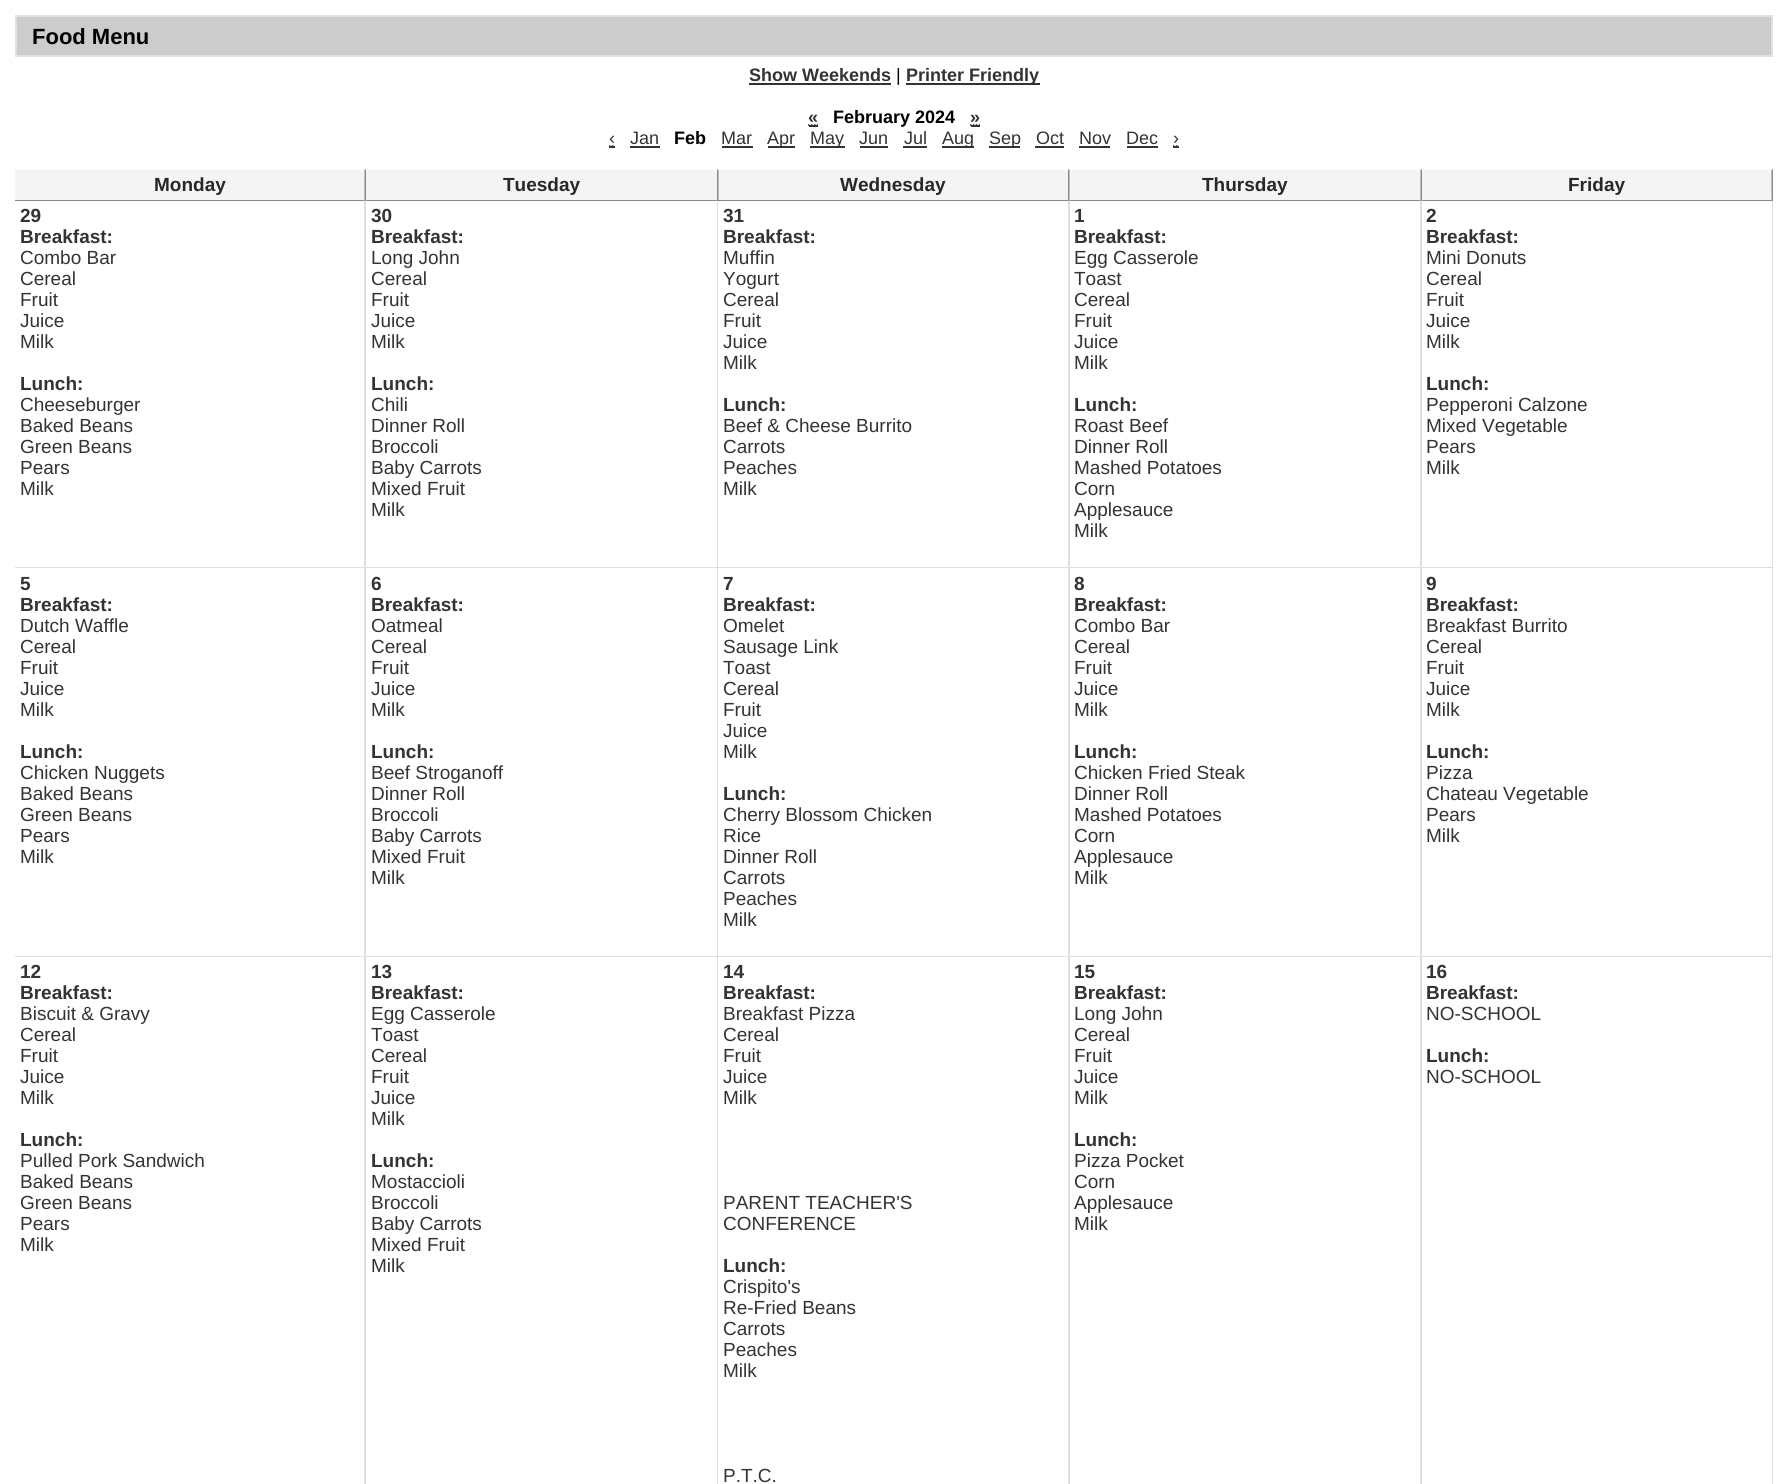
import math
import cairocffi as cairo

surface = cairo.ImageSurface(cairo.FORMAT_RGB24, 1788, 1484)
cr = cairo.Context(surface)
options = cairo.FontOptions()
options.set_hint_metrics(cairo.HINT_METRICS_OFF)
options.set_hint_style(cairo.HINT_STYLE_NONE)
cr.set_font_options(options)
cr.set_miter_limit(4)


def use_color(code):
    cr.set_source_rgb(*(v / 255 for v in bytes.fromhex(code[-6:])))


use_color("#ffffff")
cr.paint()
use_color("#cccccc")
cr.rectangle(16, 16, 1756, 40)
cr.fill_preserve()
use_color("#e1e1e1")
cr.stroke()
cr.select_font_face("Liberation Sans", cairo.FONT_SLANT_NORMAL, cairo.FONT_WEIGHT_BOLD)
cr.set_font_size(22)
use_color("#000000")
cr.move_to(32, 44)
cr.show_text("Food Menu")
cr.set_font_size(18)
use_color("#333333")
cr.move_to(749, 81)
cr.show_text("Show Weekends")
cr.rectangle(749, 83, 142, 2)
cr.fill()
cr.select_font_face("Liberation Sans")
use_color("#000000")
cr.move_to(896, 81)
cr.show_text("|")
use_color("#333333")
cr.rectangle(906, 83, 134, 2)
cr.fill()
cr.select_font_face("Liberation Sans", cairo.FONT_SLANT_NORMAL, cairo.FONT_WEIGHT_BOLD)
cr.move_to(906, 81)
cr.show_text("Printer Friendly")
cr.move_to(808, 123)
cr.show_text("«")
cr.new_path()
cr.move_to(808, 125)
cr.line_to(809.5, 125)
cr.move_to(811, 125)
cr.line_to(812.5, 125)
cr.move_to(814, 125)
cr.line_to(815.5, 125)
cr.move_to(817, 125)
cr.line_to(818, 125)
cr.set_line_width(1.5)
cr.stroke()
cr.rectangle(809, 125, 9, 2)
cr.fill()
use_color("#000000")
cr.move_to(833, 123)
cr.show_text("February 2024")
use_color("#333333")
cr.move_to(970, 123)
cr.show_text("»")
cr.new_path()
cr.move_to(970, 125)
cr.line_to(971.5, 125)
cr.move_to(973, 125)
cr.line_to(974.5, 125)
cr.move_to(976, 125)
cr.line_to(977.5, 125)
cr.move_to(979, 125)
cr.line_to(980, 125)
cr.stroke()
cr.rectangle(971, 125, 9, 2)
cr.fill()
cr.select_font_face("Liberation Sans")
cr.move_to(609, 144)
cr.show_text("‹")
cr.new_path()
cr.move_to(609, 146)
cr.line_to(610.5, 146)
cr.move_to(612, 146)
cr.line_to(613.5, 146)
cr.stroke()
cr.rectangle(609, 146, 6, 2)
cr.fill()
cr.move_to(630, 144)
cr.show_text("Jan")
cr.rectangle(630, 146, 30, 2)
cr.fill()
cr.select_font_face("Liberation Sans", cairo.FONT_SLANT_NORMAL, cairo.FONT_WEIGHT_BOLD)
use_color("#000000")
cr.move_to(674, 144)
cr.show_text("Feb")
cr.select_font_face("Liberation Sans")
use_color("#333333")
cr.move_to(721, 144)
cr.show_text("Mar")
cr.rectangle(722, 146, 31, 2)
cr.fill()
cr.rectangle(768, 146, 27, 2)
cr.fill()
cr.move_to(767, 144)
cr.show_text("Apr")
cr.rectangle(810, 146, 35, 2)
cr.fill()
cr.move_to(810, 144)
cr.show_text("May")
cr.move_to(859, 144)
cr.show_text("Jun")
cr.rectangle(860, 146, 28, 2)
cr.fill()
cr.move_to(904, 144)
cr.show_text("Jul")
cr.rectangle(903, 146, 24, 2)
cr.fill()
cr.rectangle(942, 146, 32, 2)
cr.fill()
cr.move_to(942, 144)
cr.show_text("Aug")
cr.rectangle(989, 146, 31, 2)
cr.fill()
cr.move_to(989, 144)
cr.show_text("Sep")
cr.move_to(1036, 144)
cr.show_text("Oct")
cr.rectangle(1035, 146, 29, 2)
cr.fill()
cr.move_to(1079, 144)
cr.show_text("Nov")
cr.rectangle(1079, 146, 31, 2)
cr.fill()
cr.move_to(1126, 144)
cr.show_text("Dec")
cr.rectangle(1127, 146, 31, 2)
cr.fill()
cr.move_to(1173, 144)
cr.show_text("›")
cr.new_path()
cr.move_to(1173, 146)
cr.line_to(1174.5, 146)
cr.move_to(1176, 146)
cr.line_to(1177.5, 146)
cr.stroke()
cr.rectangle(1173, 146, 6, 2)
cr.fill()
use_color("#f4f4f4")
cr.rectangle(15, 170, 1758, 31)
cr.fill()
use_color("#898989")
cr.new_path()
cr.move_to(366, 169.5)
cr.line_to(366, 201)
cr.line_to(364.5, 199.5)
cr.line_to(364.5, 169.5)
cr.close_path()
cr.fill()
cr.new_path()
cr.move_to(366, 201)
cr.line_to(15, 201)
cr.line_to(15, 200)
cr.line_to(364, 200)
cr.close_path()
cr.fill()
cr.select_font_face("Liberation Sans", cairo.FONT_SLANT_NORMAL, cairo.FONT_WEIGHT_BOLD)
cr.set_font_size(19)
use_color("#282828")
cr.move_to(154, 191)
cr.show_text("Monday")
use_color("#898989")
cr.new_path()
cr.move_to(718.5, 169.5)
cr.line_to(718.5, 201)
cr.line_to(717, 199.5)
cr.line_to(717, 169.5)
cr.close_path()
cr.fill()
cr.set_source_rgba(0, 0, 0, 0.44)
cr.new_path()
cr.move_to(718, 201)
cr.line_to(366, 201)
cr.line_to(366, 200)
cr.line_to(717, 200)
cr.close_path()
cr.fill()
use_color("#282828")
cr.move_to(503, 191)
cr.show_text("Tuesday")
use_color("#898989")
cr.new_path()
cr.move_to(1069.5, 169.5)
cr.line_to(1069.5, 201)
cr.line_to(1068, 199.5)
cr.line_to(1068, 169.5)
cr.close_path()
cr.fill()
cr.set_source_rgba(0, 0, 0, 0.44)
cr.new_path()
cr.move_to(1070, 201)
cr.line_to(718, 201)
cr.line_to(718, 200)
cr.line_to(1068, 200)
cr.close_path()
cr.fill()
use_color("#282828")
cr.move_to(840, 191)
cr.show_text("Wednesday")
use_color("#898989")
cr.new_path()
cr.move_to(1422, 169.5)
cr.line_to(1422, 201)
cr.line_to(1420.5, 199.5)
cr.line_to(1420.5, 169.5)
cr.close_path()
cr.fill()
cr.new_path()
cr.move_to(1422, 201)
cr.line_to(1070, 201)
cr.line_to(1070, 200)
cr.line_to(1420, 200)
cr.close_path()
cr.fill()
use_color("#282828")
cr.move_to(1202, 191)
cr.show_text("Thursday")
use_color("#898989")
cr.new_path()
cr.move_to(1773, 169.5)
cr.line_to(1773, 201)
cr.line_to(1771.5, 199.5)
cr.line_to(1771.5, 169.5)
cr.close_path()
cr.fill()
cr.set_source_rgba(0, 0, 0, 0.44)
cr.new_path()
cr.move_to(1773, 201)
cr.line_to(1422, 201)
cr.line_to(1422, 200)
cr.line_to(1772, 200)
cr.close_path()
cr.fill()
use_color("#282828")
cr.move_to(1568, 191)
cr.show_text("Friday")
use_color("#dedede")
cr.new_path()
cr.move_to(366, 201)
cr.line_to(366, 568)
cr.line_to(364, 567)
cr.line_to(364, 201)
cr.close_path()
cr.fill()
cr.set_source_rgba(0, 0, 0, 0.13)
cr.new_path()
cr.move_to(366, 568)
cr.line_to(15, 568)
cr.line_to(15, 567)
cr.line_to(364, 567)
cr.close_path()
cr.fill()
use_color("#333333")
cr.move_to(20, 222)
cr.show_text("29")
cr.move_to(20, 243)
cr.show_text("Breakfast:")
cr.select_font_face("Liberation Sans")
cr.move_to(20, 264)
cr.show_text("Combo Bar")
cr.move_to(20, 285)
cr.show_text("Cereal")
cr.move_to(20, 306)
cr.show_text("Fruit")
cr.move_to(20, 327)
cr.show_text("Juice")
cr.move_to(20, 348)
cr.show_text("Milk")
cr.select_font_face("Liberation Sans", cairo.FONT_SLANT_NORMAL, cairo.FONT_WEIGHT_BOLD)
cr.move_to(20, 390)
cr.show_text("Lunch:")
cr.select_font_face("Liberation Sans")
cr.move_to(20, 411)
cr.show_text("Cheeseburger")
cr.move_to(20, 432)
cr.show_text("Baked Beans")
cr.move_to(20, 453)
cr.show_text("Green Beans")
cr.move_to(20, 474)
cr.show_text("Pears")
cr.move_to(20, 495)
cr.show_text("Milk")
use_color("#dedede")
cr.new_path()
cr.move_to(718, 201)
cr.line_to(718, 568)
cr.line_to(717, 567)
cr.line_to(717, 201)
cr.close_path()
cr.fill()
cr.set_source_rgba(0, 0, 0, 0.13)
cr.new_path()
cr.move_to(718, 568)
cr.line_to(366, 568)
cr.line_to(366, 567)
cr.line_to(717, 567)
cr.close_path()
cr.fill()
cr.select_font_face("Liberation Sans", cairo.FONT_SLANT_NORMAL, cairo.FONT_WEIGHT_BOLD)
use_color("#333333")
cr.move_to(371, 222)
cr.show_text("30")
cr.move_to(371, 243)
cr.show_text("Breakfast:")
cr.select_font_face("Liberation Sans")
cr.move_to(371, 264)
cr.show_text("Long John")
cr.move_to(371, 285)
cr.show_text("Cereal")
cr.move_to(371, 306)
cr.show_text("Fruit")
cr.move_to(371, 327)
cr.show_text("Juice")
cr.move_to(371, 348)
cr.show_text("Milk")
cr.select_font_face("Liberation Sans", cairo.FONT_SLANT_NORMAL, cairo.FONT_WEIGHT_BOLD)
cr.move_to(371, 390)
cr.show_text("Lunch:")
cr.select_font_face("Liberation Sans")
cr.move_to(371, 411)
cr.show_text("Chili")
cr.move_to(371, 432)
cr.show_text("Dinner Roll")
cr.move_to(371, 453)
cr.show_text("Broccoli")
cr.move_to(371, 474)
cr.show_text("Baby Carrots")
cr.move_to(371, 495)
cr.show_text("Mixed Fruit")
cr.move_to(371, 516)
cr.show_text("Milk")
use_color("#dedede")
cr.new_path()
cr.move_to(1070, 201)
cr.line_to(1070, 568)
cr.line_to(1068, 567)
cr.line_to(1068, 201)
cr.close_path()
cr.fill()
cr.set_source_rgba(0, 0, 0, 0.13)
cr.new_path()
cr.move_to(1070, 568)
cr.line_to(718, 568)
cr.line_to(718, 567)
cr.line_to(1068, 567)
cr.close_path()
cr.fill()
cr.select_font_face("Liberation Sans", cairo.FONT_SLANT_NORMAL, cairo.FONT_WEIGHT_BOLD)
use_color("#333333")
cr.move_to(723, 222)
cr.show_text("31")
cr.move_to(723, 243)
cr.show_text("Breakfast:")
cr.select_font_face("Liberation Sans")
cr.move_to(723, 264)
cr.show_text("Muffin")
cr.move_to(723, 285)
cr.show_text("Yogurt")
cr.move_to(723, 306)
cr.show_text("Cereal")
cr.move_to(723, 327)
cr.show_text("Fruit")
cr.move_to(723, 348)
cr.show_text("Juice")
cr.move_to(723, 369)
cr.show_text("Milk")
cr.select_font_face("Liberation Sans", cairo.FONT_SLANT_NORMAL, cairo.FONT_WEIGHT_BOLD)
cr.move_to(723, 411)
cr.show_text("Lunch:")
cr.select_font_face("Liberation Sans")
cr.move_to(723, 432)
cr.show_text("Beef & Cheese Burrito")
cr.move_to(723, 453)
cr.show_text("Carrots")
cr.move_to(723, 474)
cr.show_text("Peaches")
cr.move_to(723, 495)
cr.show_text("Milk")
use_color("#dedede")
cr.new_path()
cr.move_to(1422, 201)
cr.line_to(1422, 568)
cr.line_to(1420, 567)
cr.line_to(1420, 201)
cr.close_path()
cr.fill()
cr.set_source_rgba(0, 0, 0, 0.13)
cr.new_path()
cr.move_to(1422, 568)
cr.line_to(1070, 568)
cr.line_to(1070, 567)
cr.line_to(1420, 567)
cr.close_path()
cr.fill()
cr.select_font_face("Liberation Sans", cairo.FONT_SLANT_NORMAL, cairo.FONT_WEIGHT_BOLD)
use_color("#333333")
cr.move_to(1074, 222)
cr.show_text("1")
cr.move_to(1074, 243)
cr.show_text("Breakfast:")
cr.select_font_face("Liberation Sans")
cr.move_to(1074, 264)
cr.show_text("Egg Casserole")
cr.move_to(1074, 285)
cr.show_text("Toast")
cr.move_to(1074, 306)
cr.show_text("Cereal")
cr.move_to(1074, 327)
cr.show_text("Fruit")
cr.move_to(1074, 348)
cr.show_text("Juice")
cr.move_to(1074, 369)
cr.show_text("Milk")
cr.select_font_face("Liberation Sans", cairo.FONT_SLANT_NORMAL, cairo.FONT_WEIGHT_BOLD)
cr.move_to(1074, 411)
cr.show_text("Lunch:")
cr.select_font_face("Liberation Sans")
cr.move_to(1074, 432)
cr.show_text("Roast Beef")
cr.move_to(1074, 453)
cr.show_text("Dinner Roll")
cr.move_to(1074, 474)
cr.show_text("Mashed Potatoes")
cr.move_to(1074, 495)
cr.show_text("Corn")
cr.move_to(1074, 516)
cr.show_text("Applesauce")
cr.move_to(1074, 537)
cr.show_text("Milk")
use_color("#dedede")
cr.new_path()
cr.move_to(1773, 201)
cr.line_to(1773, 568)
cr.line_to(1772, 567)
cr.line_to(1772, 201)
cr.close_path()
cr.fill()
cr.set_source_rgba(0, 0, 0, 0.13)
cr.new_path()
cr.move_to(1773, 568)
cr.line_to(1422, 568)
cr.line_to(1422, 567)
cr.line_to(1772, 567)
cr.close_path()
cr.fill()
cr.select_font_face("Liberation Sans", cairo.FONT_SLANT_NORMAL, cairo.FONT_WEIGHT_BOLD)
use_color("#333333")
cr.move_to(1426, 222)
cr.show_text("2")
cr.move_to(1426, 243)
cr.show_text("Breakfast:")
cr.select_font_face("Liberation Sans")
cr.move_to(1426, 264)
cr.show_text("Mini Donuts")
cr.move_to(1426, 285)
cr.show_text("Cereal")
cr.move_to(1426, 306)
cr.show_text("Fruit")
cr.move_to(1426, 327)
cr.show_text("Juice")
cr.move_to(1426, 348)
cr.show_text("Milk")
cr.select_font_face("Liberation Sans", cairo.FONT_SLANT_NORMAL, cairo.FONT_WEIGHT_BOLD)
cr.move_to(1426, 390)
cr.show_text("Lunch:")
cr.select_font_face("Liberation Sans")
cr.move_to(1426, 411)
cr.show_text("Pepperoni Calzone")
cr.move_to(1426, 432)
cr.show_text("Mixed Vegetable")
cr.move_to(1426, 453)
cr.show_text("Pears")
cr.move_to(1426, 474)
cr.show_text("Milk")
use_color("#dedede")
cr.new_path()
cr.move_to(366, 568)
cr.line_to(366, 957)
cr.line_to(364, 956)
cr.line_to(364, 568)
cr.close_path()
cr.fill()
cr.set_source_rgba(0, 0, 0, 0.13)
cr.new_path()
cr.move_to(366, 957)
cr.line_to(15, 957)
cr.line_to(15, 956)
cr.line_to(364, 956)
cr.close_path()
cr.fill()
cr.select_font_face("Liberation Sans", cairo.FONT_SLANT_NORMAL, cairo.FONT_WEIGHT_BOLD)
use_color("#333333")
cr.move_to(20, 590)
cr.show_text("5")
cr.move_to(20, 611)
cr.show_text("Breakfast:")
cr.select_font_face("Liberation Sans")
cr.move_to(20, 632)
cr.show_text("Dutch Waffle")
cr.move_to(20, 653)
cr.show_text("Cereal")
cr.move_to(20, 674)
cr.show_text("Fruit")
cr.move_to(20, 695)
cr.show_text("Juice")
cr.move_to(20, 716)
cr.show_text("Milk")
cr.select_font_face("Liberation Sans", cairo.FONT_SLANT_NORMAL, cairo.FONT_WEIGHT_BOLD)
cr.move_to(20, 758)
cr.show_text("Lunch:")
cr.select_font_face("Liberation Sans")
cr.move_to(20, 779)
cr.show_text("Chicken Nuggets")
cr.move_to(20, 800)
cr.show_text("Baked Beans")
cr.move_to(20, 821)
cr.show_text("Green Beans")
cr.move_to(20, 842)
cr.show_text("Pears")
cr.move_to(20, 863)
cr.show_text("Milk")
use_color("#dedede")
cr.new_path()
cr.move_to(718, 568)
cr.line_to(718, 957)
cr.line_to(717, 956)
cr.line_to(717, 568)
cr.close_path()
cr.fill()
cr.set_source_rgba(0, 0, 0, 0.13)
cr.new_path()
cr.move_to(718, 957)
cr.line_to(366, 957)
cr.line_to(366, 956)
cr.line_to(717, 956)
cr.close_path()
cr.fill()
cr.select_font_face("Liberation Sans", cairo.FONT_SLANT_NORMAL, cairo.FONT_WEIGHT_BOLD)
use_color("#333333")
cr.move_to(371, 590)
cr.show_text("6")
cr.move_to(371, 611)
cr.show_text("Breakfast:")
cr.select_font_face("Liberation Sans")
cr.move_to(371, 632)
cr.show_text("Oatmeal")
cr.move_to(371, 653)
cr.show_text("Cereal")
cr.move_to(371, 674)
cr.show_text("Fruit")
cr.move_to(371, 695)
cr.show_text("Juice")
cr.move_to(371, 716)
cr.show_text("Milk")
cr.select_font_face("Liberation Sans", cairo.FONT_SLANT_NORMAL, cairo.FONT_WEIGHT_BOLD)
cr.move_to(371, 758)
cr.show_text("Lunch:")
cr.select_font_face("Liberation Sans")
cr.move_to(371, 779)
cr.show_text("Beef Stroganoff")
cr.move_to(371, 800)
cr.show_text("Dinner Roll")
cr.move_to(371, 821)
cr.show_text("Broccoli")
cr.move_to(371, 842)
cr.show_text("Baby Carrots")
cr.move_to(371, 863)
cr.show_text("Mixed Fruit")
cr.move_to(371, 884)
cr.show_text("Milk")
use_color("#dedede")
cr.new_path()
cr.move_to(1070, 568)
cr.line_to(1070, 957)
cr.line_to(1068, 956)
cr.line_to(1068, 568)
cr.close_path()
cr.fill()
cr.set_source_rgba(0, 0, 0, 0.13)
cr.new_path()
cr.move_to(1070, 957)
cr.line_to(718, 957)
cr.line_to(718, 956)
cr.line_to(1068, 956)
cr.close_path()
cr.fill()
cr.select_font_face("Liberation Sans", cairo.FONT_SLANT_NORMAL, cairo.FONT_WEIGHT_BOLD)
use_color("#333333")
cr.move_to(723, 590)
cr.show_text("7")
cr.move_to(723, 611)
cr.show_text("Breakfast:")
cr.select_font_face("Liberation Sans")
cr.move_to(723, 632)
cr.show_text("Omelet")
cr.move_to(723, 653)
cr.show_text("Sausage Link")
cr.move_to(723, 674)
cr.show_text("Toast")
cr.move_to(723, 695)
cr.show_text("Cereal")
cr.move_to(723, 716)
cr.show_text("Fruit")
cr.move_to(723, 737)
cr.show_text("Juice")
cr.move_to(723, 758)
cr.show_text("Milk")
cr.select_font_face("Liberation Sans", cairo.FONT_SLANT_NORMAL, cairo.FONT_WEIGHT_BOLD)
cr.move_to(723, 800)
cr.show_text("Lunch:")
cr.select_font_face("Liberation Sans")
cr.move_to(723, 821)
cr.show_text("Cherry Blossom Chicken")
cr.move_to(723, 842)
cr.show_text("Rice")
cr.move_to(723, 863)
cr.show_text("Dinner Roll")
cr.move_to(723, 884)
cr.show_text("Carrots")
cr.move_to(723, 905)
cr.show_text("Peaches")
cr.move_to(723, 926)
cr.show_text("Milk")
use_color("#dedede")
cr.new_path()
cr.move_to(1422, 568)
cr.line_to(1422, 957)
cr.line_to(1420, 956)
cr.line_to(1420, 568)
cr.close_path()
cr.fill()
cr.set_source_rgba(0, 0, 0, 0.13)
cr.new_path()
cr.move_to(1422, 957)
cr.line_to(1070, 957)
cr.line_to(1070, 956)
cr.line_to(1420, 956)
cr.close_path()
cr.fill()
cr.select_font_face("Liberation Sans", cairo.FONT_SLANT_NORMAL, cairo.FONT_WEIGHT_BOLD)
use_color("#333333")
cr.move_to(1074, 590)
cr.show_text("8")
cr.move_to(1074, 611)
cr.show_text("Breakfast:")
cr.select_font_face("Liberation Sans")
cr.move_to(1074, 632)
cr.show_text("Combo Bar")
cr.move_to(1074, 653)
cr.show_text("Cereal")
cr.move_to(1074, 674)
cr.show_text("Fruit")
cr.move_to(1074, 695)
cr.show_text("Juice")
cr.move_to(1074, 716)
cr.show_text("Milk")
cr.select_font_face("Liberation Sans", cairo.FONT_SLANT_NORMAL, cairo.FONT_WEIGHT_BOLD)
cr.move_to(1074, 758)
cr.show_text("Lunch:")
cr.select_font_face("Liberation Sans")
cr.move_to(1074, 779)
cr.show_text("Chicken Fried Steak")
cr.move_to(1074, 800)
cr.show_text("Dinner Roll")
cr.move_to(1074, 821)
cr.show_text("Mashed Potatoes")
cr.move_to(1074, 842)
cr.show_text("Corn")
cr.move_to(1074, 863)
cr.show_text("Applesauce")
cr.move_to(1074, 884)
cr.show_text("Milk")
use_color("#dedede")
cr.new_path()
cr.move_to(1773, 568)
cr.line_to(1773, 957)
cr.line_to(1772, 956)
cr.line_to(1772, 568)
cr.close_path()
cr.fill()
cr.set_source_rgba(0, 0, 0, 0.13)
cr.new_path()
cr.move_to(1773, 957)
cr.line_to(1422, 957)
cr.line_to(1422, 956)
cr.line_to(1772, 956)
cr.close_path()
cr.fill()
cr.select_font_face("Liberation Sans", cairo.FONT_SLANT_NORMAL, cairo.FONT_WEIGHT_BOLD)
use_color("#333333")
cr.move_to(1426, 590)
cr.show_text("9")
cr.move_to(1426, 611)
cr.show_text("Breakfast:")
cr.select_font_face("Liberation Sans")
cr.move_to(1426, 632)
cr.show_text("Breakfast Burrito")
cr.move_to(1426, 653)
cr.show_text("Cereal")
cr.move_to(1426, 674)
cr.show_text("Fruit")
cr.move_to(1426, 695)
cr.show_text("Juice")
cr.move_to(1426, 716)
cr.show_text("Milk")
cr.select_font_face("Liberation Sans", cairo.FONT_SLANT_NORMAL, cairo.FONT_WEIGHT_BOLD)
cr.move_to(1426, 758)
cr.show_text("Lunch:")
cr.select_font_face("Liberation Sans")
cr.move_to(1426, 779)
cr.show_text("Pizza")
cr.move_to(1426, 800)
cr.show_text("Chateau Vegetable")
cr.move_to(1426, 821)
cr.show_text("Pears")
cr.move_to(1426, 842)
cr.show_text("Milk")
use_color("#dedede")
cr.new_path()
cr.move_to(366, 957)
cr.line_to(366, 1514)
cr.line_to(364, 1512)
cr.line_to(364, 957)
cr.close_path()
cr.fill()
cr.select_font_face("Liberation Sans", cairo.FONT_SLANT_NORMAL, cairo.FONT_WEIGHT_BOLD)
use_color("#333333")
cr.move_to(20, 978)
cr.show_text("12")
cr.move_to(20, 999)
cr.show_text("Breakfast:")
cr.select_font_face("Liberation Sans")
cr.move_to(20, 1020)
cr.show_text("Biscuit & Gravy")
cr.move_to(20, 1041)
cr.show_text("Cereal")
cr.move_to(20, 1062)
cr.show_text("Fruit")
cr.move_to(20, 1083)
cr.show_text("Juice")
cr.move_to(20, 1104)
cr.show_text("Milk")
cr.select_font_face("Liberation Sans", cairo.FONT_SLANT_NORMAL, cairo.FONT_WEIGHT_BOLD)
cr.move_to(20, 1146)
cr.show_text("Lunch:")
cr.select_font_face("Liberation Sans")
cr.move_to(20, 1167)
cr.show_text("Pulled Pork Sandwich")
cr.move_to(20, 1188)
cr.show_text("Baked Beans")
cr.move_to(20, 1209)
cr.show_text("Green Beans")
cr.move_to(20, 1230)
cr.show_text("Pears")
cr.move_to(20, 1251)
cr.show_text("Milk")
use_color("#dedede")
cr.new_path()
cr.move_to(718, 957)
cr.line_to(718, 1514)
cr.line_to(717, 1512)
cr.line_to(717, 957)
cr.close_path()
cr.fill()
cr.select_font_face("Liberation Sans", cairo.FONT_SLANT_NORMAL, cairo.FONT_WEIGHT_BOLD)
use_color("#333333")
cr.move_to(371, 978)
cr.show_text("13")
cr.move_to(371, 999)
cr.show_text("Breakfast:")
cr.select_font_face("Liberation Sans")
cr.move_to(371, 1020)
cr.show_text("Egg Casserole")
cr.move_to(371, 1041)
cr.show_text("Toast")
cr.move_to(371, 1062)
cr.show_text("Cereal")
cr.move_to(371, 1083)
cr.show_text("Fruit")
cr.move_to(371, 1104)
cr.show_text("Juice")
cr.move_to(371, 1125)
cr.show_text("Milk")
cr.select_font_face("Liberation Sans", cairo.FONT_SLANT_NORMAL, cairo.FONT_WEIGHT_BOLD)
cr.move_to(371, 1167)
cr.show_text("Lunch:")
cr.select_font_face("Liberation Sans")
cr.move_to(371, 1188)
cr.show_text("Mostaccioli")
cr.move_to(371, 1209)
cr.show_text("Broccoli")
cr.move_to(371, 1230)
cr.show_text("Baby Carrots")
cr.move_to(371, 1251)
cr.show_text("Mixed Fruit")
cr.move_to(371, 1272)
cr.show_text("Milk")
use_color("#dedede")
cr.new_path()
cr.move_to(1070, 957)
cr.line_to(1070, 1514)
cr.line_to(1068, 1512)
cr.line_to(1068, 957)
cr.close_path()
cr.fill()
cr.select_font_face("Liberation Sans", cairo.FONT_SLANT_NORMAL, cairo.FONT_WEIGHT_BOLD)
use_color("#333333")
cr.move_to(723, 978)
cr.show_text("14")
cr.move_to(723, 999)
cr.show_text("Breakfast:")
cr.select_font_face("Liberation Sans")
cr.move_to(723, 1020)
cr.show_text("Breakfast Pizza")
cr.move_to(723, 1041)
cr.show_text("Cereal")
cr.move_to(723, 1062)
cr.show_text("Fruit")
cr.move_to(723, 1083)
cr.show_text("Juice")
cr.move_to(723, 1104)
cr.show_text("Milk")
cr.move_to(723, 1209)
cr.show_text("PARENT TEACHER'S")
cr.move_to(723, 1230)
cr.show_text("CONFERENCE")
cr.select_font_face("Liberation Sans", cairo.FONT_SLANT_NORMAL, cairo.FONT_WEIGHT_BOLD)
cr.move_to(723, 1272)
cr.show_text("Lunch:")
cr.select_font_face("Liberation Sans")
cr.move_to(723, 1293)
cr.show_text("Crispito's")
cr.move_to(723, 1314)
cr.show_text("Re-Fried Beans")
cr.move_to(723, 1335)
cr.show_text("Carrots")
cr.move_to(723, 1356)
cr.show_text("Peaches")
cr.move_to(723, 1377)
cr.show_text("Milk")
cr.move_to(723, 1482)
cr.show_text("P.T.C.")
use_color("#dedede")
cr.new_path()
cr.move_to(1422, 957)
cr.line_to(1422, 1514)
cr.line_to(1420, 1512)
cr.line_to(1420, 957)
cr.close_path()
cr.fill()
cr.select_font_face("Liberation Sans", cairo.FONT_SLANT_NORMAL, cairo.FONT_WEIGHT_BOLD)
use_color("#333333")
cr.move_to(1074, 978)
cr.show_text("15")
cr.move_to(1074, 999)
cr.show_text("Breakfast:")
cr.select_font_face("Liberation Sans")
cr.move_to(1074, 1020)
cr.show_text("Long John")
cr.move_to(1074, 1041)
cr.show_text("Cereal")
cr.move_to(1074, 1062)
cr.show_text("Fruit")
cr.move_to(1074, 1083)
cr.show_text("Juice")
cr.move_to(1074, 1104)
cr.show_text("Milk")
cr.select_font_face("Liberation Sans", cairo.FONT_SLANT_NORMAL, cairo.FONT_WEIGHT_BOLD)
cr.move_to(1074, 1146)
cr.show_text("Lunch:")
cr.select_font_face("Liberation Sans")
cr.move_to(1074, 1167)
cr.show_text("Pizza Pocket")
cr.move_to(1074, 1188)
cr.show_text("Corn")
cr.move_to(1074, 1209)
cr.show_text("Applesauce")
cr.move_to(1074, 1230)
cr.show_text("Milk")
use_color("#dedede")
cr.new_path()
cr.move_to(1773, 957)
cr.line_to(1773, 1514)
cr.line_to(1772, 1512)
cr.line_to(1772, 957)
cr.close_path()
cr.fill()
cr.select_font_face("Liberation Sans", cairo.FONT_SLANT_NORMAL, cairo.FONT_WEIGHT_BOLD)
use_color("#333333")
cr.move_to(1426, 978)
cr.show_text("16")
cr.move_to(1426, 999)
cr.show_text("Breakfast:")
cr.select_font_face("Liberation Sans")
cr.move_to(1426, 1020)
cr.show_text("NO-SCHOOL")
cr.select_font_face("Liberation Sans", cairo.FONT_SLANT_NORMAL, cairo.FONT_WEIGHT_BOLD)
cr.move_to(1426, 1062)
cr.show_text("Lunch:")
cr.select_font_face("Liberation Sans")
cr.move_to(1426, 1083)
cr.show_text("NO-SCHOOL")
surface.write_to_png("result.png")
